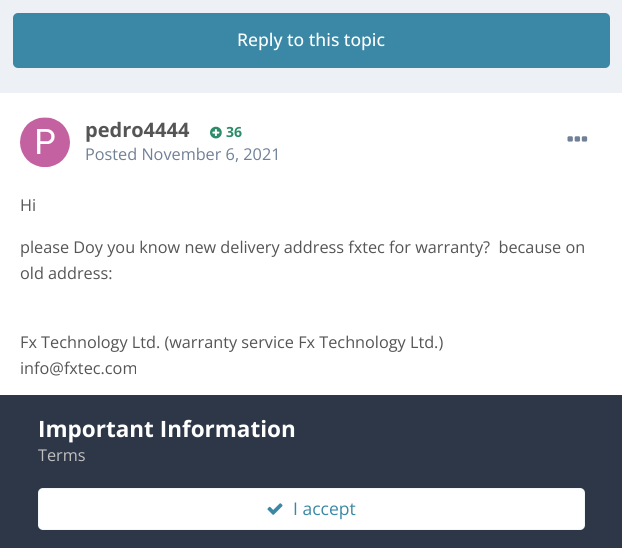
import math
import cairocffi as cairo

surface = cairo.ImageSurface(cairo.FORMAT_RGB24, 622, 548)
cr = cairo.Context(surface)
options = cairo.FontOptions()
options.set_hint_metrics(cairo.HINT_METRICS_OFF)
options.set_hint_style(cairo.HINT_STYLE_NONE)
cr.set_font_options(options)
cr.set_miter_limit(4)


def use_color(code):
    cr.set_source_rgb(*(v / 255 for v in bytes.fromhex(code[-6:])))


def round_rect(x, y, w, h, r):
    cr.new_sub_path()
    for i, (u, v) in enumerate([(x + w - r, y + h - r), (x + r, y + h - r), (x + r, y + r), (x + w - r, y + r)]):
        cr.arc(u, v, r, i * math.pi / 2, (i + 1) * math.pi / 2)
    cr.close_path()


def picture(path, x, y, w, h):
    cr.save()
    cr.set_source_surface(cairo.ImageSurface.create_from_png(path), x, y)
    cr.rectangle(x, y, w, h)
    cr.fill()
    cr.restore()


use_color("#edf0f4")
cr.paint()
use_color("#3a88a5")
round_rect(13, 13, 597, 55, 5)
cr.fill()
cr.select_font_face("Open Sans Medium")
cr.set_font_size(17.5)
use_color("#ffffff")
cr.move_to(237, 46)
cr.show_text("Reply to this topic")
cr.rectangle(0, 93, 622, 302)
cr.fill()
picture("img1.png", 20, 117, 50, 50)
cr.select_font_face("Open Sans", cairo.FONT_SLANT_NORMAL, cairo.FONT_WEIGHT_BOLD)
cr.set_font_size(20)
use_color("#555555")
cr.move_to(85, 137)
cr.show_text("pedro4444")
picture("img2.png", 210, 126, 12, 13)
cr.set_font_size(14)
use_color("#2c8c69")
cr.move_to(226, 137)
cr.show_text("36")
cr.select_font_face("Open Sans")
cr.set_font_size(16.25)
use_color("#718096")
cr.move_to(85, 160)
cr.show_text("Posted November 6, 2021")
picture("img3.png", 567, 136, 21, 6)
use_color("#555555")
cr.move_to(20, 211)
cr.show_text("Hi")
cr.move_to(20, 253)
cr.show_text("please Doy you know new delivery address fxtec for warranty?  because on")
cr.move_to(20, 279)
cr.show_text("old address:")
cr.move_to(20, 348)
cr.show_text("Fx Technology Ltd. (warranty service Fx Technology Ltd.)")
cr.move_to(20, 374)
cr.show_text("info@fxtec.com")
use_color("#2d3748")
cr.rectangle(0, 395, 622, 153)
cr.fill()
cr.select_font_face("Open Sans", cairo.FONT_SLANT_NORMAL, cairo.FONT_WEIGHT_BOLD)
cr.set_font_size(22.5)
use_color("#ffffff")
cr.move_to(38, 437)
cr.show_text("Important Information")
cr.select_font_face("Open Sans")
cr.set_font_size(16.25)
use_color("#c0c0c0")
cr.move_to(38, 461)
cr.show_text("Terms")
use_color("#ffffff")
round_rect(38, 488, 547, 42, 5)
cr.fill()
round_rect(38.5, 488.5, 546, 41, 4.5)
cr.set_source_rgba(0.227, 0.533, 0.647, 0.07)
cr.set_line_width(1)
cr.stroke()
picture("img4.png", 267, 503, 16, 12)
cr.set_font_size(17.5)
use_color("#3a88a5")
cr.move_to(293, 515)
cr.show_text("I accept")
surface.write_to_png("result.png")
